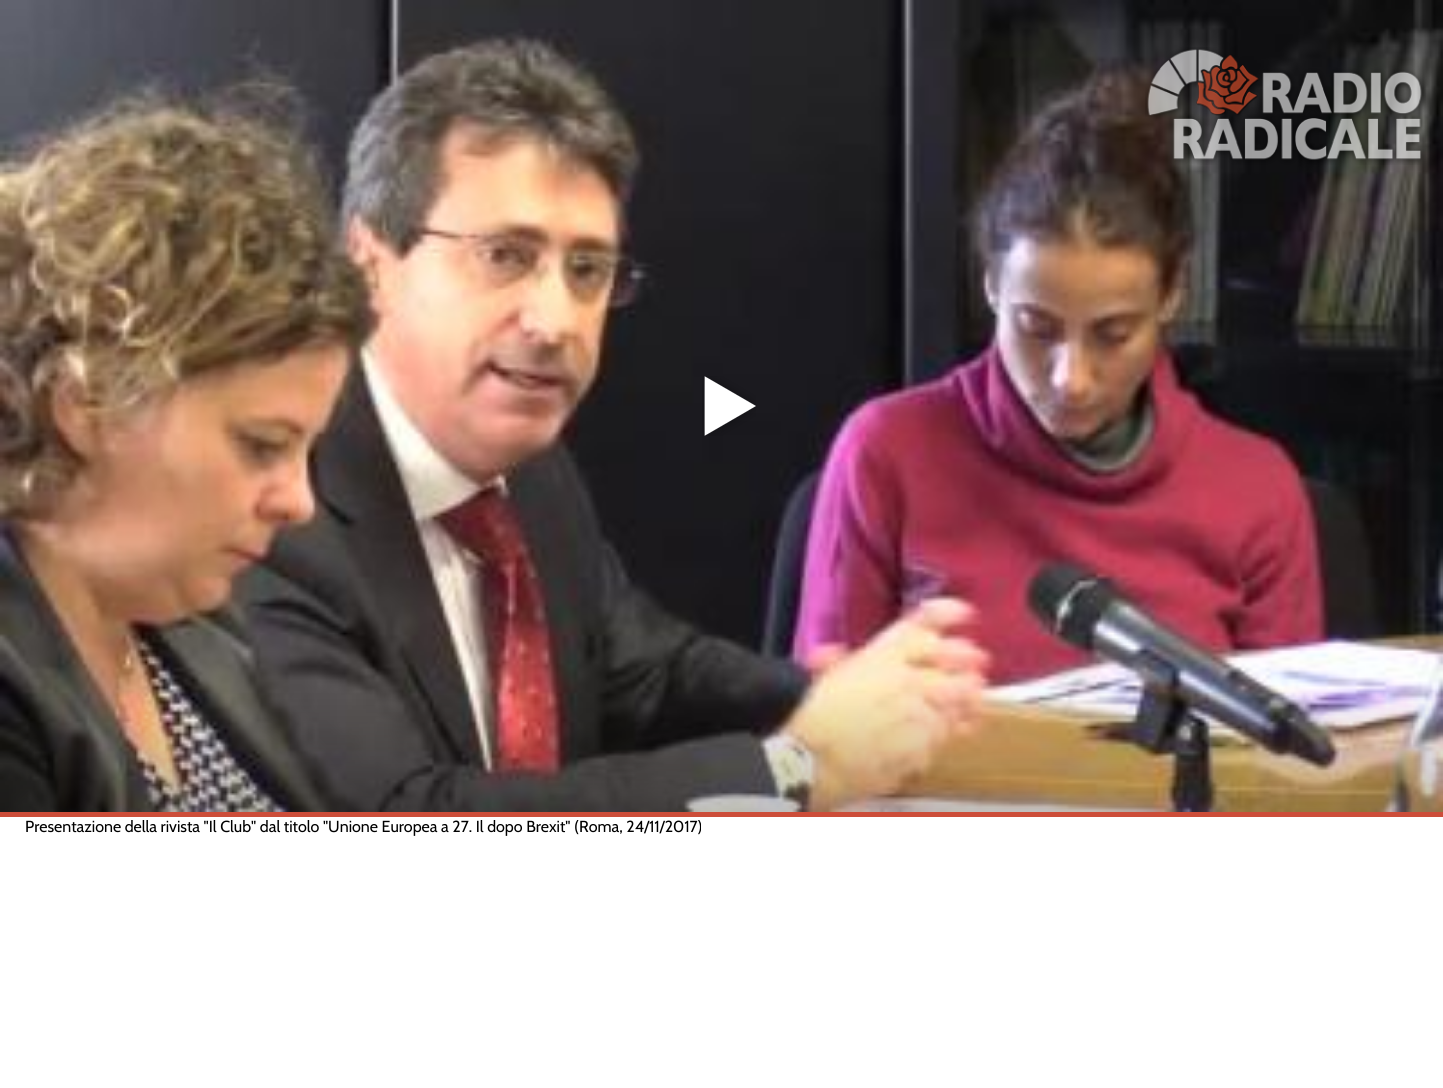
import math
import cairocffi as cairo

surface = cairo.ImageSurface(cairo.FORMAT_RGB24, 1443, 1088)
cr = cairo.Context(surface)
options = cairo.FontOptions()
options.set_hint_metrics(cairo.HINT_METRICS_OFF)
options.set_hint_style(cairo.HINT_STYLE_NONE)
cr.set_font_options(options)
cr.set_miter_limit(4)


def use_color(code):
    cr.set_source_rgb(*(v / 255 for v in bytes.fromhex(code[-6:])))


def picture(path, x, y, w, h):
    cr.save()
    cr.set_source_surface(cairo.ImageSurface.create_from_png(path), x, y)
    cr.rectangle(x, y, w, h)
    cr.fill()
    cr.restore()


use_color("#ffffff")
cr.paint()
picture("img1.png", 0, 0, 1443, 812)
picture("img2.png", 1145, 47, 281, 118)
picture("img3.png", 702, 376, 54, 60)
use_color("#cc4d39")
cr.rectangle(0, 812, 1443, 5)
cr.fill()
cr.select_font_face("Cabin")
cr.set_font_size(16)
use_color("#000000")
cr.move_to(25, 832)
cr.show_text("Presentazione della rivista \"Il Club\" dal titolo \"Unione Europea a 27. Il dopo Brexit\" (Roma, 24/11/2017)")
surface.write_to_png("result.png")
